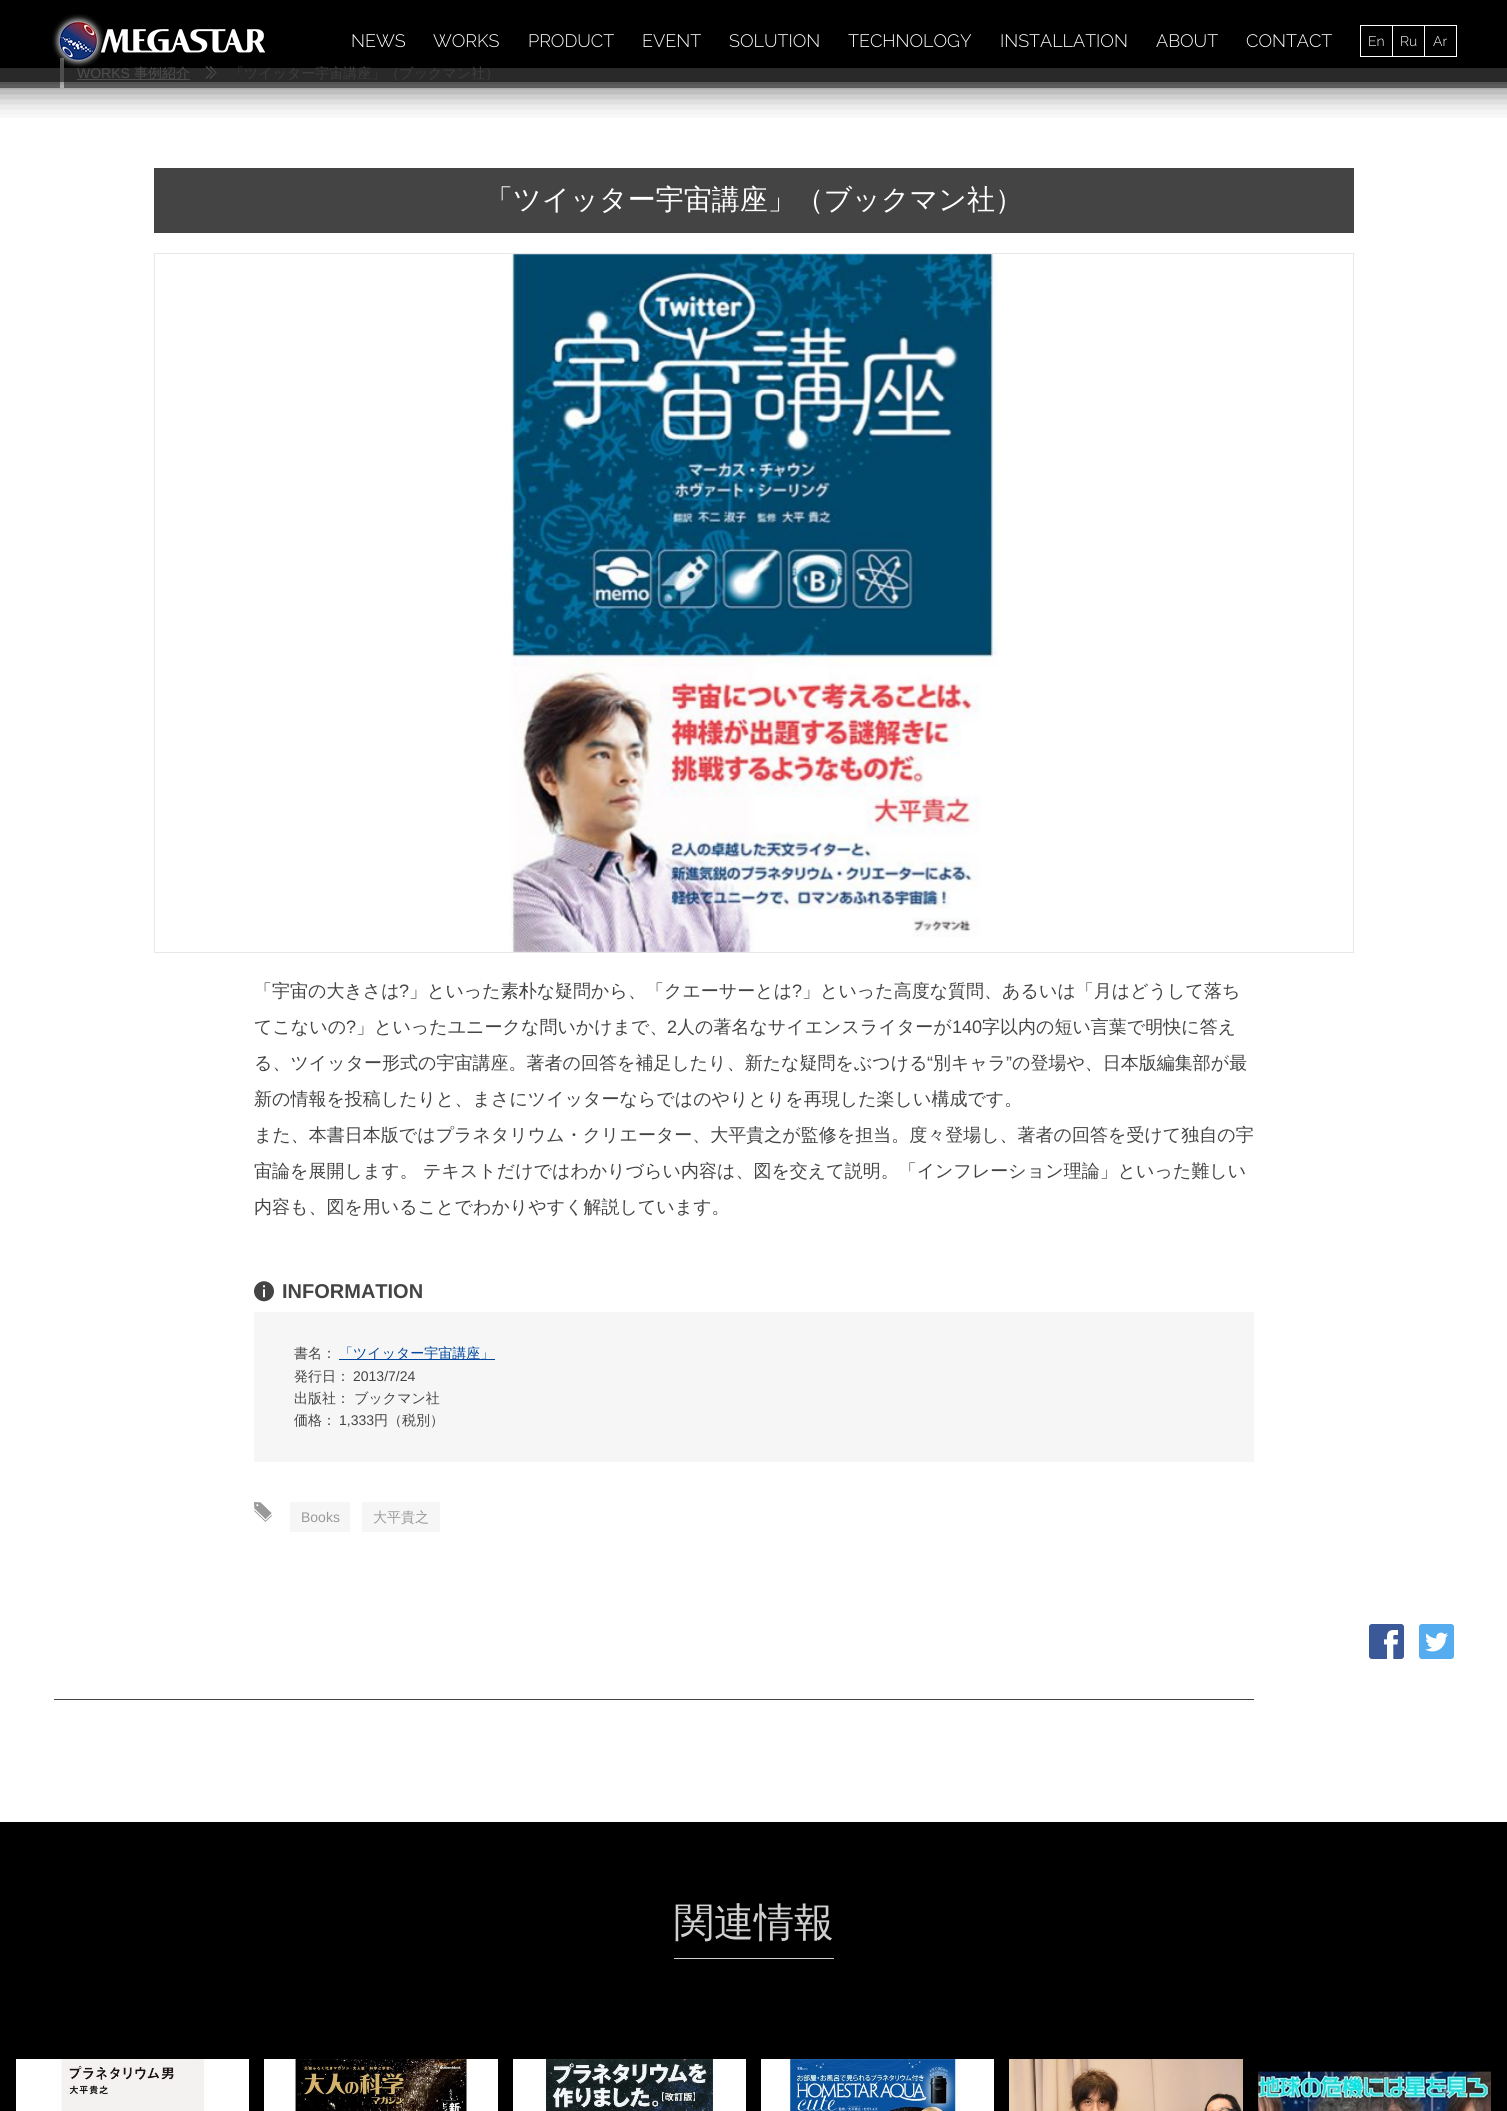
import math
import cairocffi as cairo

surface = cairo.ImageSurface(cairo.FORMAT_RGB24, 1507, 2111)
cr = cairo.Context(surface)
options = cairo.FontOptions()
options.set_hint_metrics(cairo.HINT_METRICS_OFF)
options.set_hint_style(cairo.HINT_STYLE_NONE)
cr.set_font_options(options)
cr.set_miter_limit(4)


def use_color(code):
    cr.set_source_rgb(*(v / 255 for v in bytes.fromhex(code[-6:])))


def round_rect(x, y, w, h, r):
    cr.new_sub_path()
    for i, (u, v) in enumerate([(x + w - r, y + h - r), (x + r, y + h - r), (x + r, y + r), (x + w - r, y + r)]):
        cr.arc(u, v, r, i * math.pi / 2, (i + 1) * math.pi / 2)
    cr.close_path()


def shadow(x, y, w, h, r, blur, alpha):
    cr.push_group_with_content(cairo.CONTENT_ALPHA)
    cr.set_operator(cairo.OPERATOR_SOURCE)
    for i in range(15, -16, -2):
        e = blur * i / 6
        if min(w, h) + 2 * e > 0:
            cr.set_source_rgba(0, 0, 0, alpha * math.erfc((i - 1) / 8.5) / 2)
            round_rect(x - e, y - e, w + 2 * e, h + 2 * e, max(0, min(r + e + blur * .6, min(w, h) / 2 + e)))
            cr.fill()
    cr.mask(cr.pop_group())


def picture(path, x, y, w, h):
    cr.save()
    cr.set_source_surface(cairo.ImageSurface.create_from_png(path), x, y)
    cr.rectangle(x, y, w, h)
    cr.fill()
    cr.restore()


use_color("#ffffff")
cr.paint()
use_color("#888888")
cr.rectangle(0, 82, 1507, 6)
cr.fill()
use_color("#292929")
cr.rectangle(0, 68, 1507, 14)
cr.fill()
use_color("#000000")
cr.rectangle(0, 0, 1507, 68)
cr.fill()
use_color("#ffffff")
cr.rectangle(60, 82, 4, 6)
cr.fill()
use_color("#4d4d4d")
cr.rectangle(60, 58, 4, 24)
cr.fill()
cr.rectangle(77, 79, 113, 1)
cr.fill()
cr.new_path()
cr.move_to(206.5, 66)
cr.line_to(212.5, 72.5)
cr.line_to(212, 73)
cr.line_to(205.5, 67)
cr.close_path()
cr.fill()
cr.new_path()
cr.move_to(212, 72)
cr.line_to(212.5, 72.5)
cr.line_to(206.5, 79)
cr.line_to(205.5, 78)
cr.close_path()
cr.fill()
cr.new_path()
cr.move_to(210.5, 66)
cr.line_to(216.5, 72.5)
cr.line_to(216, 73)
cr.line_to(209.5, 67)
cr.close_path()
cr.fill()
cr.new_path()
cr.move_to(216, 72)
cr.line_to(216.5, 72.5)
cr.line_to(210.5, 79)
cr.line_to(209.5, 78)
cr.close_path()
cr.fill()
cr.save()
cr.rectangle(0, 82, 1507, 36)
cr.clip()
use_color("#000000")
shadow(-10, -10, 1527, 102, 0, 15, 0.5)
cr.restore()
cr.select_font_face("WenQuanYi Zen Hei Medium")
cr.set_font_size(14)
cr.move_to(134, 78)
cr.show_text("事例紹介")
use_color("#3d3d3d")
cr.move_to(230, 78)
cr.show_text("「ツイッター宇宙講座」（ブックマン社）")
picture("img1.png", 52, 14, 213, 54)
cr.select_font_face("Raleway Light")
cr.set_font_size(18)
use_color("#ffffff")
cr.move_to(351, 47)
cr.show_text("NEWS")
cr.move_to(433, 47)
cr.show_text("WORKS")
cr.move_to(528, 47)
cr.show_text("PRODUCT")
cr.move_to(642, 47)
cr.show_text("EVENT")
cr.move_to(729, 47)
cr.show_text("SOLUTION")
cr.move_to(848, 47)
cr.show_text("TECHNOLOGY")
cr.move_to(1000, 47)
cr.show_text("INSTALLATION")
cr.move_to(1156, 47)
cr.show_text("ABOUT")
cr.move_to(1246, 47)
cr.show_text("CONTACT")
cr.rectangle(1360.5, 25.5, 96, 31)
cr.set_line_width(1)
cr.stroke()
cr.set_font_size(14)
cr.move_to(1368, 46)
cr.show_text("En")
cr.rectangle(1392, 26, 1, 30)
cr.fill()
cr.move_to(1400, 46)
cr.show_text("Ru")
cr.rectangle(1424, 26, 1, 30)
cr.fill()
cr.move_to(1433, 46)
cr.show_text("Ar")
cr.select_font_face("Liberation Sans")
use_color("#4d4d4d")
cr.move_to(77, 78)
cr.show_text("WORKS")
use_color("#444444")
cr.rectangle(154, 168, 1200, 65)
cr.fill()
cr.select_font_face("WenQuanYi Zen Hei Medium")
cr.set_font_size(28)
use_color("#ffffff")
cr.move_to(485, 209)
cr.show_text("「ツイッター宇宙講座」（ブックマン社）")
cr.rectangle(154.5, 253.5, 1199, 699)
use_color("#e8e6e6")
cr.stroke()
picture("img2.png", 510, 254, 488, 698)
cr.set_font_size(18)
use_color("#444444")
cr.move_to(254, 997)
cr.show_text("「宇宙の大きさは")
cr.select_font_face("Liberation Sans")
cr.move_to(399, 997)
cr.show_text("?")
cr.select_font_face("WenQuanYi Zen Hei Medium")
cr.move_to(409, 997)
cr.show_text("」といった素朴な疑問から、「クエーサーとは")
cr.select_font_face("Liberation Sans")
cr.move_to(792, 997)
cr.show_text("?")
cr.select_font_face("WenQuanYi Zen Hei Medium")
cr.move_to(802, 997)
cr.show_text("」といった高度な質問、あるいは「月はどうして落ち")
cr.move_to(254, 1033)
cr.show_text("てこないの")
cr.select_font_face("Liberation Sans")
cr.move_to(346, 1033)
cr.show_text("?")
cr.select_font_face("WenQuanYi Zen Hei Medium")
cr.move_to(356, 1033)
cr.show_text("」といったユニークな問いかけまで、")
cr.select_font_face("Liberation Sans")
cr.move_to(667, 1033)
cr.show_text("2")
cr.select_font_face("WenQuanYi Zen Hei Medium")
cr.move_to(677, 1033)
cr.show_text("人の著名なサイエンスライターが")
cr.select_font_face("Liberation Sans")
cr.move_to(952, 1033)
cr.show_text("140")
cr.select_font_face("WenQuanYi Zen Hei Medium")
cr.move_to(982, 1033)
cr.show_text("字以内の短い言葉で明快に答え")
cr.move_to(254, 1069)
cr.show_text("る、ツイッター形式の宇宙講座。著者の回答を補足したり、新たな疑問をぶつける")
cr.select_font_face("Liberation Sans")
cr.move_to(927, 1069)
cr.show_text("“")
cr.select_font_face("WenQuanYi Zen Hei Medium")
cr.move_to(933, 1069)
cr.show_text("別キャラ")
cr.select_font_face("Liberation Sans")
cr.move_to(1006, 1069)
cr.show_text("”")
cr.select_font_face("WenQuanYi Zen Hei Medium")
cr.move_to(1012, 1069)
cr.show_text("の登場や、日本版編集部が最")
cr.move_to(254, 1105)
cr.show_text("新の情報を投稿したりと、まさにツイッターならではのやりとりを再現した楽しい構成です。")
cr.move_to(254, 1141)
cr.show_text("また、本書日本版ではプラネタリウム・クリエーター、大平貴之が監修を担当。度々登場し、著者の回答を受けて独自の宇")
cr.move_to(254, 1177)
cr.show_text("宙論を展開します。 テキストだけではわかりづらい内容は、図を交えて説明。「インフレーション理論」といった難しい")
cr.move_to(254, 1213)
cr.show_text("内容も、図を用いることでわかりやすく解説しています。")
picture("img3.png", 254, 1281, 20, 21)
cr.select_font_face("Liberation Sans", cairo.FONT_SLANT_NORMAL, cairo.FONT_WEIGHT_BOLD)
cr.set_font_size(20)
cr.move_to(282, 1298)
cr.show_text("INFORMATION")
use_color("#f6f6f6")
cr.rectangle(254, 1312, 1000, 150)
cr.fill()
cr.select_font_face("WenQuanYi Zen Hei Medium")
cr.set_font_size(14)
use_color("#444444")
cr.move_to(294, 1358)
cr.show_text("書名：")
use_color("#00479d")
cr.rectangle(339, 1359, 156, 1)
cr.fill()
cr.move_to(339, 1358)
cr.show_text("「ツイッター宇宙講座」")
use_color("#444444")
cr.move_to(294, 1381)
cr.show_text("発行日：")
cr.select_font_face("Liberation Sans")
cr.move_to(353, 1381)
cr.show_text("2013/7/24")
cr.select_font_face("WenQuanYi Zen Hei Medium")
cr.move_to(294, 1403)
cr.show_text("出版社： ブックマン社")
cr.move_to(294, 1425)
cr.show_text("価格：")
cr.select_font_face("Liberation Sans")
cr.move_to(339, 1425)
cr.show_text("1,333")
cr.select_font_face("WenQuanYi Zen Hei Medium")
cr.move_to(374, 1425)
cr.show_text("円（税別）")
picture("img4.png", 254, 1502, 18, 20)
use_color("#f6f6f6")
cr.rectangle(290, 1502, 60, 30)
cr.fill()
cr.select_font_face("Liberation Sans")
use_color("#999999")
cr.move_to(301, 1522)
cr.show_text("Books")
use_color("#f6f6f6")
cr.rectangle(362, 1502, 78, 30)
cr.fill()
cr.select_font_face("WenQuanYi Zen Hei Medium")
use_color("#999999")
cr.move_to(373, 1522)
cr.show_text("大平貴之")
picture("img5.png", 1369, 1624, 35, 35)
picture("img6.png", 1419, 1624, 35, 35)
use_color("#444444")
cr.rectangle(54, 1699, 1200, 1)
cr.fill()
use_color("#000000")
cr.rectangle(0, 1822, 1507, 289)
cr.fill()
use_color("#cfcfcf")
cr.rectangle(674, 1958, 160, 1)
cr.fill()
cr.set_font_size(40)
cr.move_to(674, 1936)
cr.show_text("関連情報")
picture("img7.png", 16, 2059, 233, 52)
picture("img8.png", 264, 2059, 234, 52)
picture("img9.png", 513, 2059, 233, 52)
picture("img10.png", 761, 2059, 233, 52)
picture("img11.png", 1009, 2059, 234, 52)
picture("img12.png", 1258, 2067, 233, 44)
surface.write_to_png("result.png")
